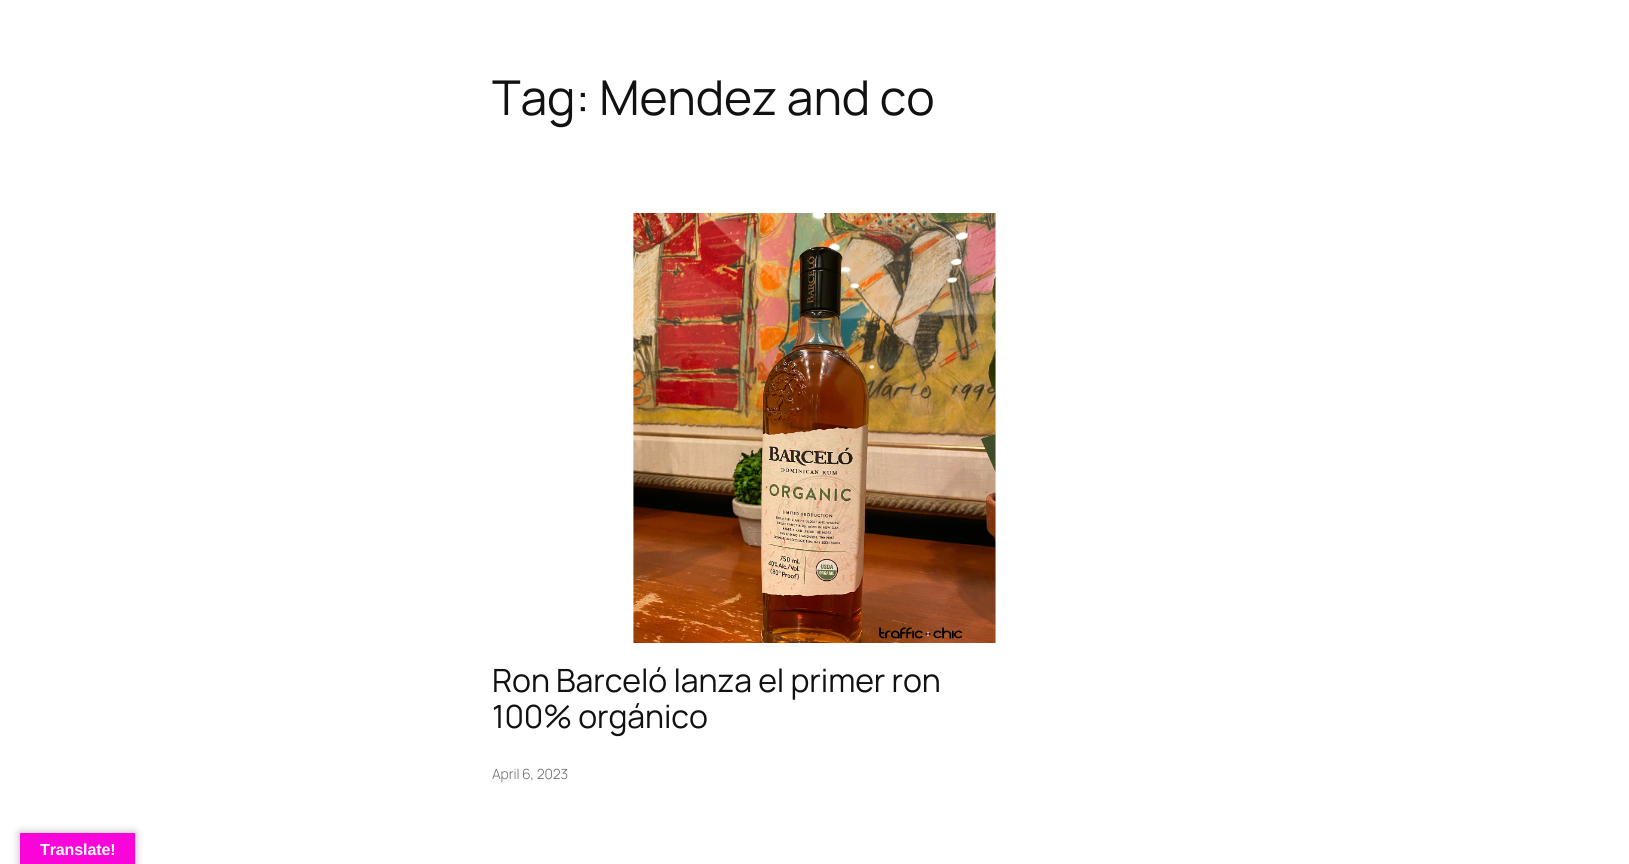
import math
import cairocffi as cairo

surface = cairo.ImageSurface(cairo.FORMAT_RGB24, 1629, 864)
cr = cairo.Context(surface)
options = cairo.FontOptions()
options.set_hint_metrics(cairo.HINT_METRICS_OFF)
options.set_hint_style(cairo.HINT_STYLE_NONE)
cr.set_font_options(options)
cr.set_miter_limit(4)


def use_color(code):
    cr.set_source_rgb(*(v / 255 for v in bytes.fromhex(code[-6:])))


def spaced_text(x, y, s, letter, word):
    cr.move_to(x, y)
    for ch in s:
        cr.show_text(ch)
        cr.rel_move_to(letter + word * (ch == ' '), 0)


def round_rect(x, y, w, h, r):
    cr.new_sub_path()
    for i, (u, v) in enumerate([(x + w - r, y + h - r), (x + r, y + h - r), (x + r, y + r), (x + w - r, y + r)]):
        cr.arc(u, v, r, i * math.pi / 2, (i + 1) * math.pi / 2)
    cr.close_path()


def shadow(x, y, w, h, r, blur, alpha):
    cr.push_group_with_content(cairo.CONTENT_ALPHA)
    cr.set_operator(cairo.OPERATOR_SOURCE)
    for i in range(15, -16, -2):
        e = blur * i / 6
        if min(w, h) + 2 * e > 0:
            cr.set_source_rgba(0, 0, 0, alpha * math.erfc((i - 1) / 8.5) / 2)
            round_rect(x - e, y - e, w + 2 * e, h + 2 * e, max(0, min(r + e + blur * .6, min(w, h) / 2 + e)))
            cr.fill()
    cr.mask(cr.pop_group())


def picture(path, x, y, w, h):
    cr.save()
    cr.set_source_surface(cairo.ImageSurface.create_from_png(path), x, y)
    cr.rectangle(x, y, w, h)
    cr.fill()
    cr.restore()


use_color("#ffffff")
cr.paint()
cr.select_font_face("Manrope")
cr.set_font_size(48)
use_color("#111111")
spaced_text(492, 115, "Tag: Mendez and co", -0.1, 0)
picture("img1.png", 633, 213, 363, 430)
cr.set_font_size(32)
spaced_text(492, 692, "Ron Barceló lanza el primer ron", -0.1, 0)
spaced_text(492, 728, "100% orgánico", -0.1, 0)
cr.select_font_face("Manrope Light")
cr.set_font_size(14)
use_color("#686868")
spaced_text(492, 779, "April 6, 2023", -0.1, 0)
use_color("#000000")
shadow(20, 833, 115, 31, 0, 4.5, 0.3)
use_color("#f904d9")
cr.rectangle(20, 833, 115, 31)
cr.fill()
cr.select_font_face("Liberation Sans", cairo.FONT_SLANT_NORMAL, cairo.FONT_WEIGHT_BOLD)
cr.set_font_size(16)
use_color("#ffffff")
spaced_text(40, 855, "Translate!", -0.1, 0)
surface.write_to_png("result.png")
